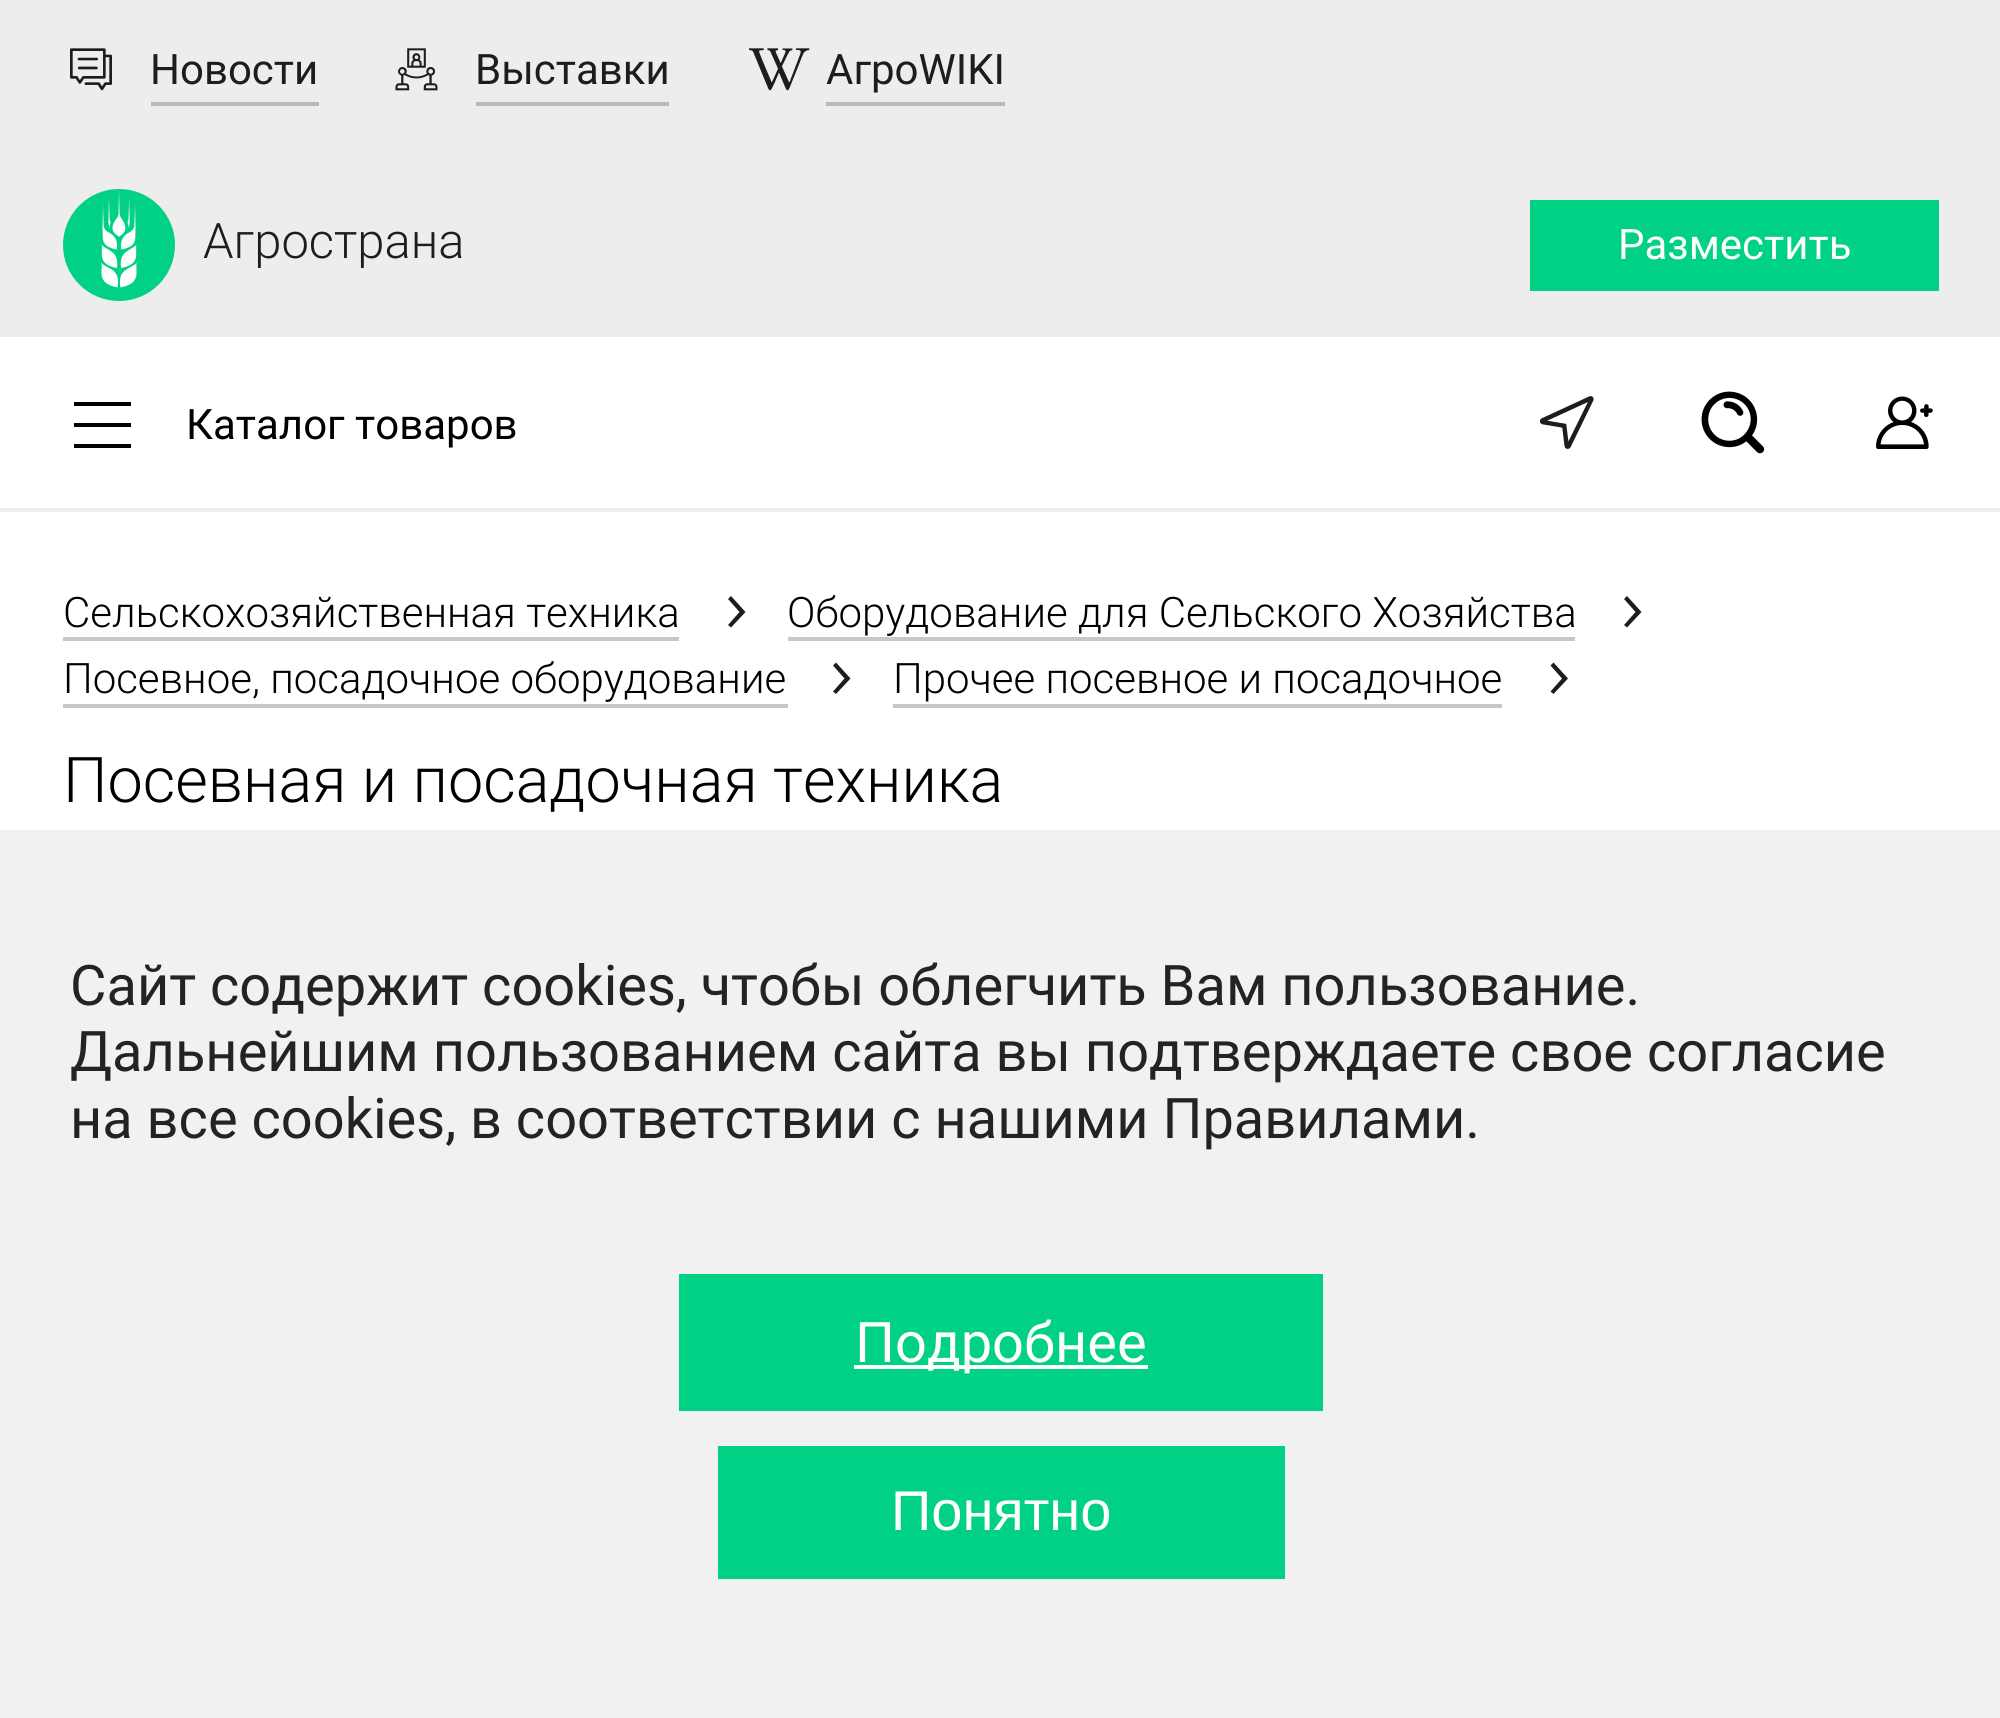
import math
import cairocffi as cairo

surface = cairo.ImageSurface(cairo.FORMAT_RGB24, 2000, 1718)
cr = cairo.Context(surface)
options = cairo.FontOptions()
options.set_hint_metrics(cairo.HINT_METRICS_OFF)
options.set_hint_style(cairo.HINT_STYLE_NONE)
cr.set_font_options(options)
cr.set_miter_limit(4)


def use_color(code):
    cr.set_source_rgb(*(v / 255 for v in bytes.fromhex(code[-6:])))


def picture(path, x, y, w, h):
    cr.save()
    cr.set_source_surface(cairo.ImageSurface.create_from_png(path), x, y)
    cr.rectangle(x, y, w, h)
    cr.fill()
    cr.restore()


use_color("#ffffff")
cr.paint()
use_color("#ededed")
cr.rectangle(0, 0, 2000, 337)
cr.fill()
picture("img1.png", 70, 48, 42, 43)
cr.select_font_face("Roboto")
cr.set_font_size(42)
use_color("#1d1d1b")
cr.move_to(150, 84)
cr.show_text("Новости")
use_color("#b9b9b9")
cr.rectangle(151, 102, 168, 4)
cr.fill()
picture("img2.png", 395, 48, 43, 43)
use_color("#1d1d1b")
cr.move_to(475, 84)
cr.show_text("Выставки")
use_color("#b9b9b9")
cr.rectangle(476, 102, 193, 4)
cr.fill()
picture("img3.png", 749, 48, 61, 43)
cr.select_font_face("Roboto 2")
use_color("#1d1d1b")
cr.move_to(826, 84)
cr.show_text("АгроWIKI")
use_color("#b9b9b9")
cr.rectangle(826, 102, 179, 4)
cr.fill()
picture("img4.png", 63, 189, 112, 112)
cr.select_font_face("Roboto Light")
cr.set_font_size(49)
use_color("#1d1d1b")
cr.move_to(203, 258)
cr.show_text("Агространа")
use_color("#00d185")
cr.rectangle(1530, 200, 409, 91)
cr.fill()
cr.select_font_face("Roboto")
cr.set_font_size(42)
use_color("#ffffff")
cr.move_to(1618, 259)
cr.show_text("Разместить")
use_color("#ededed")
cr.rectangle(0, 508, 2000, 4)
cr.fill()
use_color("#000000")
cr.new_path()
cr.move_to(131, 448)
cr.line_to(74, 448)
cr.line_to(74, 444)
cr.line_to(131, 444)
cr.close_path()
cr.move_to(131, 427)
cr.line_to(74, 427)
cr.line_to(74, 423)
cr.line_to(131, 423)
cr.close_path()
cr.move_to(131, 406)
cr.line_to(74, 406)
cr.line_to(74, 402)
cr.line_to(131, 402)
cr.close_path()
cr.fill()
cr.move_to(186, 439)
cr.show_text("Каталог товаров")
picture("img5.png", 1539, 396, 55, 53)
picture("img6.png", 1701, 391, 64, 63)
picture("img7.png", 1876, 396, 57, 53)
use_color("#c7c7c6")
cr.rectangle(63, 637, 616, 4)
cr.fill()
cr.select_font_face("Roboto Light")
use_color("#000000")
cr.move_to(63, 627)
cr.show_text("Сельскохозяйственная техника")
use_color("#1d1d1b")
cr.new_path()
cr.move_to(731, 627.5)
cr.line_to(728, 625)
cr.line_to(739.5, 612)
cr.line_to(728, 599)
cr.line_to(731, 596)
cr.line_to(745.5, 612)
cr.close_path()
cr.fill()
use_color("#c7c7c6")
cr.rectangle(788, 637, 787, 4)
cr.fill()
use_color("#000000")
cr.move_to(787, 627)
cr.show_text("Оборудование для Сельского Хозяйства")
use_color("#1d1d1b")
cr.new_path()
cr.move_to(1627, 627.5)
cr.line_to(1624, 625)
cr.line_to(1635.5, 612)
cr.line_to(1624, 599)
cr.line_to(1627, 596)
cr.line_to(1641.5, 612)
cr.close_path()
cr.fill()
use_color("#c7c7c6")
cr.rectangle(63, 704, 725, 4)
cr.fill()
use_color("#000000")
cr.move_to(63, 693)
cr.show_text("Посевное, посадочное оборудование")
use_color("#1d1d1b")
cr.new_path()
cr.move_to(836, 694)
cr.line_to(833, 691.5)
cr.line_to(844.5, 678.5)
cr.line_to(833, 665.5)
cr.line_to(836, 662.5)
cr.line_to(850.5, 678.5)
cr.close_path()
cr.fill()
use_color("#c7c7c6")
cr.rectangle(893, 704, 609, 4)
cr.fill()
use_color("#000000")
cr.move_to(893, 693)
cr.show_text("Прочее посевное и посадочное")
use_color("#1d1d1b")
cr.new_path()
cr.move_to(1553.5, 694)
cr.line_to(1550.5, 691.5)
cr.line_to(1562, 678.5)
cr.line_to(1550.5, 665.5)
cr.line_to(1553.5, 662.5)
cr.line_to(1568, 678.5)
cr.close_path()
cr.fill()
cr.set_font_size(63)
use_color("#000000")
cr.move_to(63, 802)
cr.show_text("Посевная и посадочная техника")
use_color("#f1f1f1")
cr.rectangle(0, 830, 2000, 888)
cr.fill()
cr.select_font_face("Roboto")
cr.set_font_size(56)
use_color("#232323")
cr.move_to(70, 1005)
cr.show_text("Сайт содержит cookies, чтобы облегчить Вам пользование.")
cr.move_to(70, 1071)
cr.show_text("Дальнейшим пользованием сайта вы подтверждаете свое согласие")
cr.move_to(70, 1138)
cr.show_text("на все cookies, в соответствии с нашими Правилами.")
use_color("#00d185")
cr.rectangle(679, 1274, 644, 137)
cr.fill()
use_color("#ffffff")
cr.rectangle(854, 1365, 294, 4)
cr.fill()
cr.move_to(855, 1362)
cr.show_text("Подробнее")
use_color("#00d185")
cr.rectangle(718, 1446, 567, 133)
cr.fill()
cr.select_font_face("Liberation Sans")
use_color("#ffffff")
cr.move_to(891, 1530)
cr.show_text("Понятно")
surface.write_to_png("result.png")
